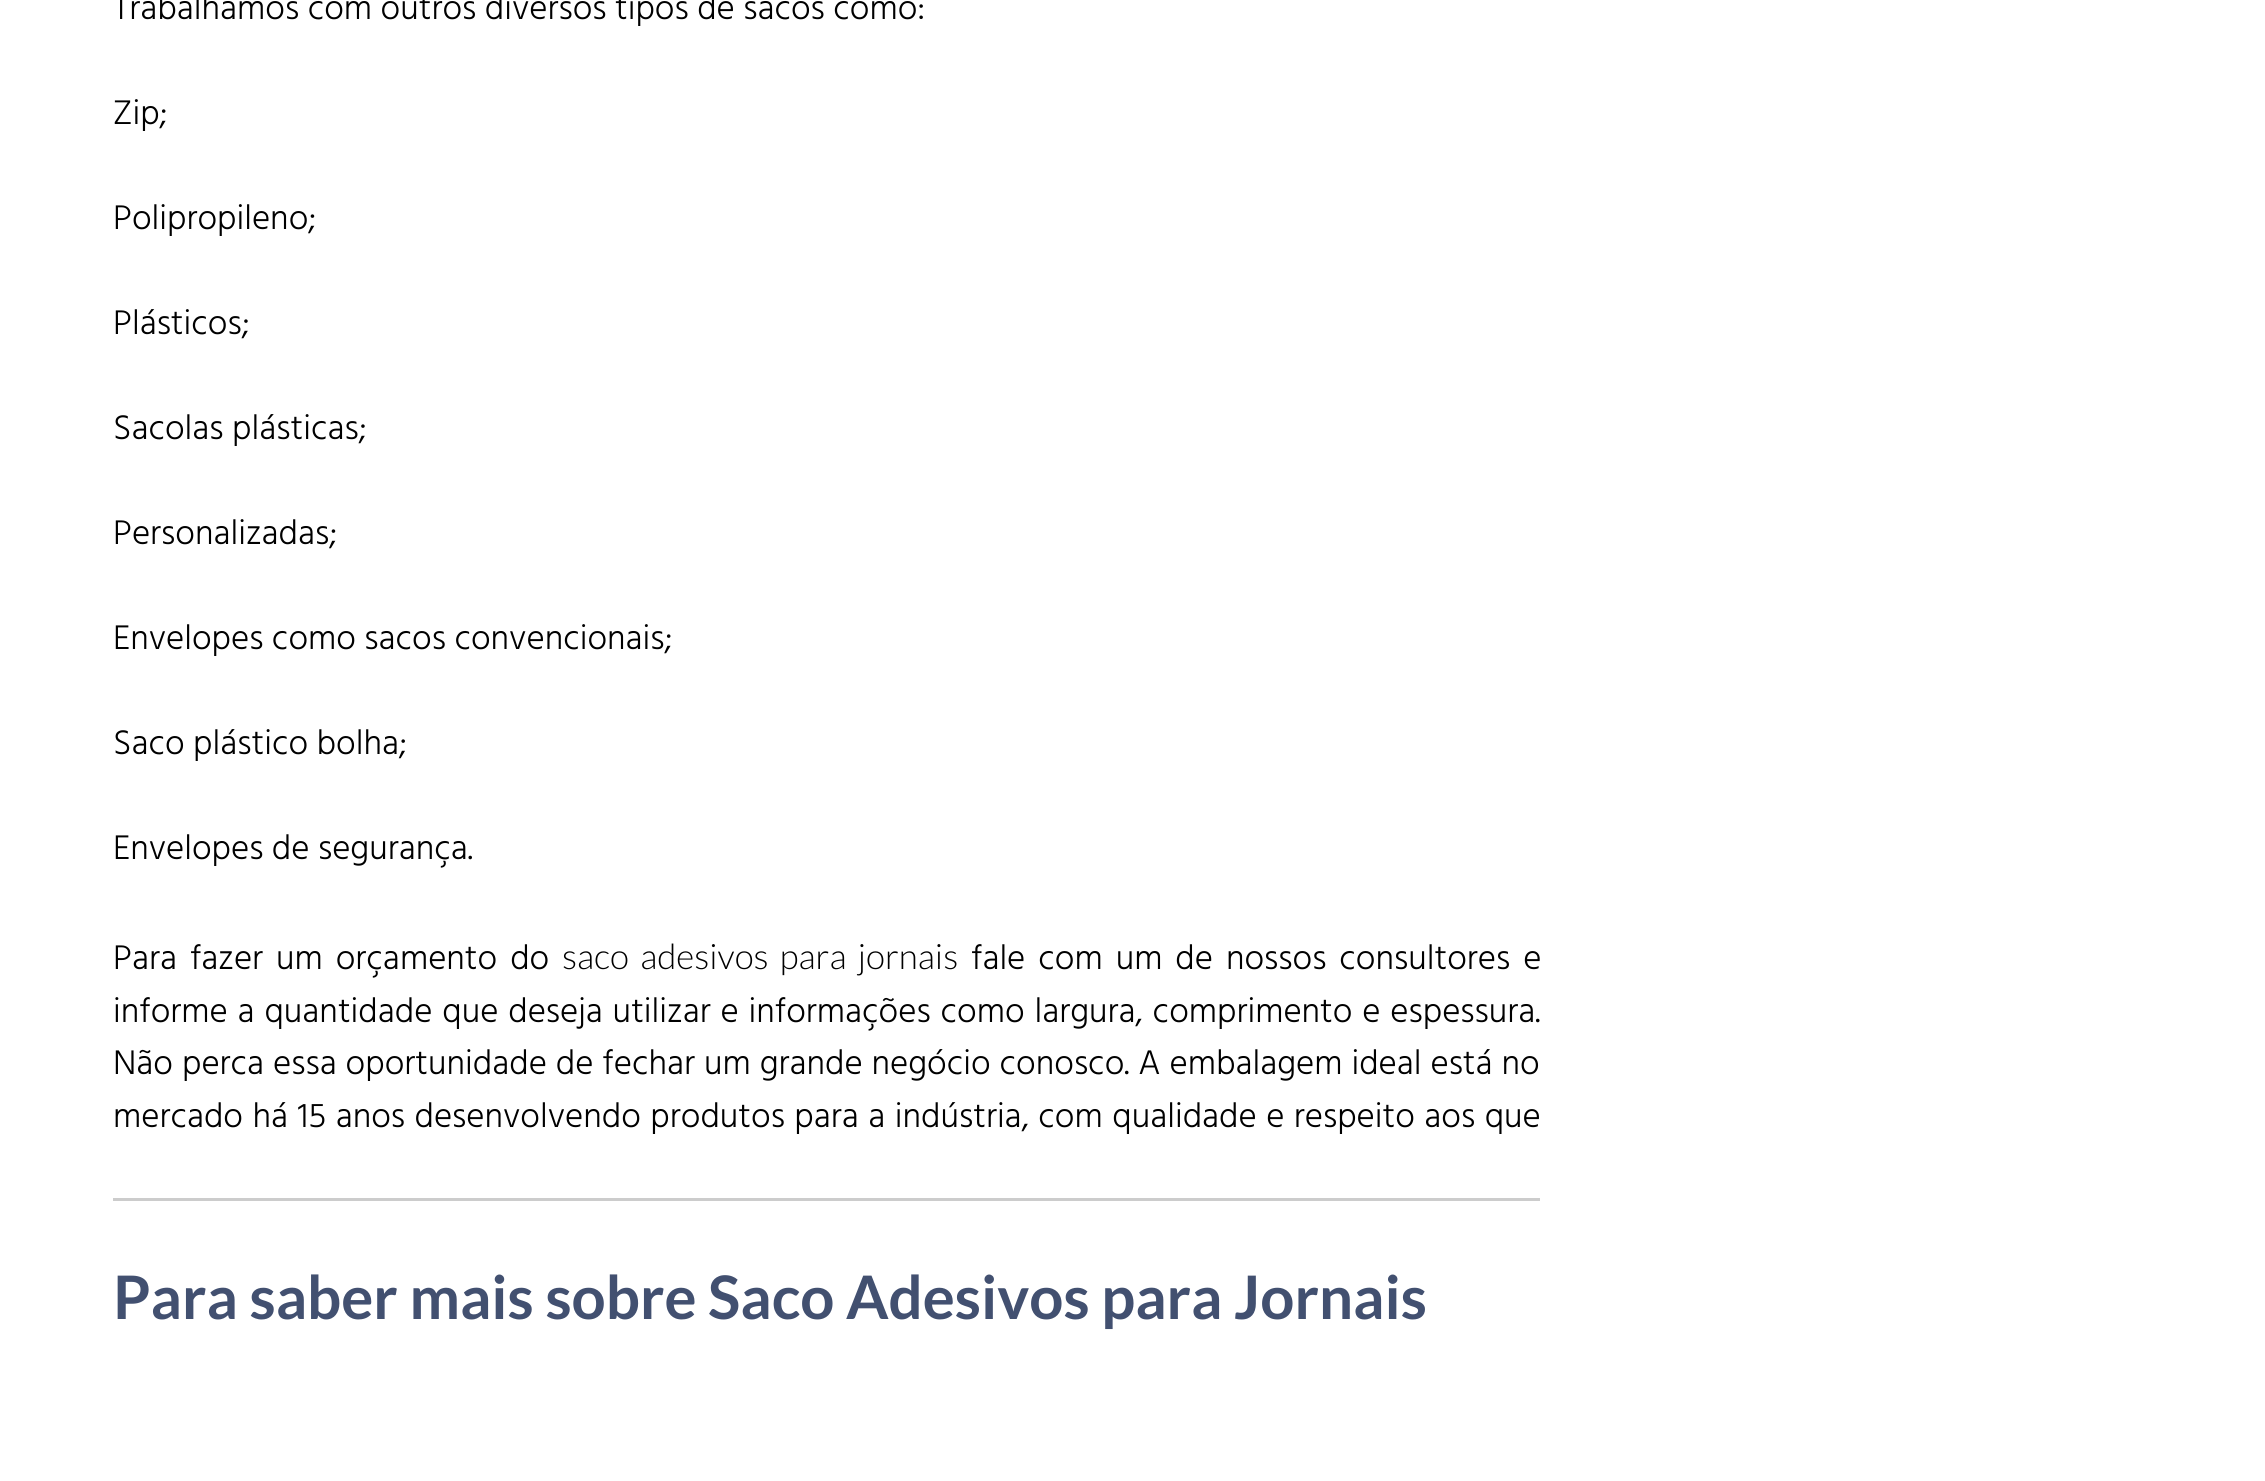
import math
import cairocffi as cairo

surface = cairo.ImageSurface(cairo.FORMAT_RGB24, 2265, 1481)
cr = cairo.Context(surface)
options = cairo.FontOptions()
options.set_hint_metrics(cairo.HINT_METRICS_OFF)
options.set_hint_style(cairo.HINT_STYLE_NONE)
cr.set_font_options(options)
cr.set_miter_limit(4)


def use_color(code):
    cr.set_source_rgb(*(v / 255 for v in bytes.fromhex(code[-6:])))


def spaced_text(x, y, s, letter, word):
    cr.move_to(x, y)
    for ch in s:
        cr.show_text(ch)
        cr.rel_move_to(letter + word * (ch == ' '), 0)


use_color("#ffffff")
cr.paint()
cr.select_font_face("Hind Light")
cr.set_font_size(35)
use_color("#000000")
cr.move_to(113, 19)
cr.show_text("Trabalhamos com outros diversos tipos de sacos como:")
cr.move_to(113, 124)
cr.show_text("Zip;")
cr.move_to(113, 229)
cr.show_text("Polipropileno;")
cr.move_to(113, 334)
cr.show_text("Plásticos;")
cr.move_to(113, 439)
cr.show_text("Sacolas plásticas;")
cr.move_to(113, 544)
cr.show_text("Personalizadas;")
cr.move_to(113, 649)
cr.show_text("Envelopes como sacos convencionais;")
cr.move_to(113, 754)
cr.show_text("Saco plástico bolha;")
cr.move_to(113, 859)
cr.show_text("Envelopes de segurança.")
spaced_text(113, 969, "Para fazer um orçamento do", 0, 4.5)
cr.select_font_face("Lato Light")
spaced_text(562, 969, "saco adesivos para jornais", 0, 4.5)
cr.select_font_face("Hind Light")
spaced_text(971, 969, "fale com um de nossos consultores e", 0, 4.5)
spaced_text(113, 1022, "informe a quantidade que deseja utilizar e informações como largura, comprimento e espessura.", 0, 1.4)
spaced_text(113, 1074, "Não perca essa oportunidade de fechar um grande negócio conosco. A embalagem ideal está no", 0, 0.5)
spaced_text(113, 1127, "mercado há 15 anos desenvolvendo produtos para a indústria, com qualidade e respeito aos que", 0, 1)
use_color("#cccccc")
cr.rectangle(113, 1198, 1427, 3)
cr.fill()
cr.select_font_face("Lato", cairo.FONT_SLANT_NORMAL, cairo.FONT_WEIGHT_BOLD)
cr.set_font_size(60)
use_color("#425070")
cr.move_to(113, 1319)
cr.show_text("Para saber mais sobre Saco Adesivos para Jornais")
surface.write_to_png("result.png")
